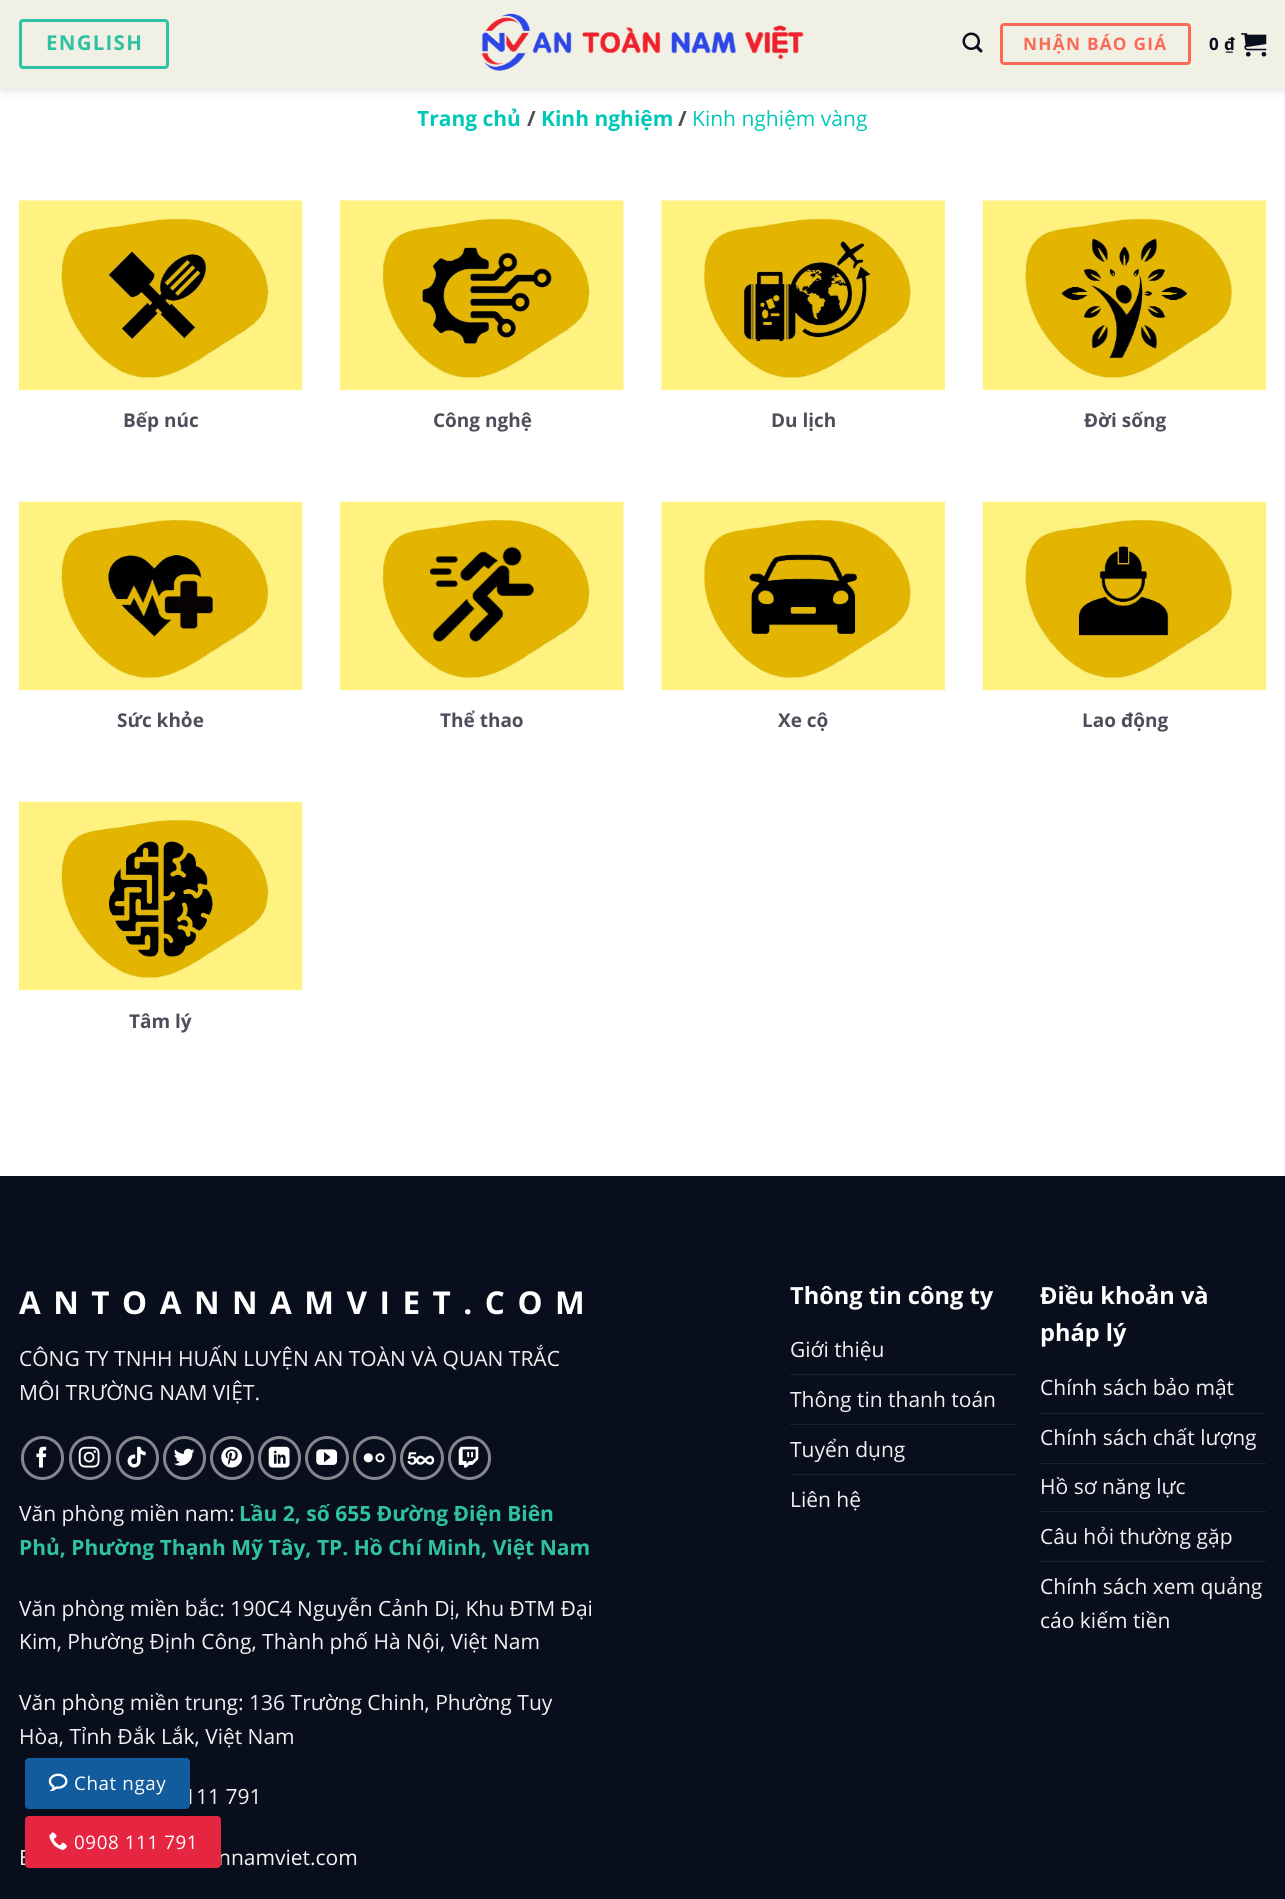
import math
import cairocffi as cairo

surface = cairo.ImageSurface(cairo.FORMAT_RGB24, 1285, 1899)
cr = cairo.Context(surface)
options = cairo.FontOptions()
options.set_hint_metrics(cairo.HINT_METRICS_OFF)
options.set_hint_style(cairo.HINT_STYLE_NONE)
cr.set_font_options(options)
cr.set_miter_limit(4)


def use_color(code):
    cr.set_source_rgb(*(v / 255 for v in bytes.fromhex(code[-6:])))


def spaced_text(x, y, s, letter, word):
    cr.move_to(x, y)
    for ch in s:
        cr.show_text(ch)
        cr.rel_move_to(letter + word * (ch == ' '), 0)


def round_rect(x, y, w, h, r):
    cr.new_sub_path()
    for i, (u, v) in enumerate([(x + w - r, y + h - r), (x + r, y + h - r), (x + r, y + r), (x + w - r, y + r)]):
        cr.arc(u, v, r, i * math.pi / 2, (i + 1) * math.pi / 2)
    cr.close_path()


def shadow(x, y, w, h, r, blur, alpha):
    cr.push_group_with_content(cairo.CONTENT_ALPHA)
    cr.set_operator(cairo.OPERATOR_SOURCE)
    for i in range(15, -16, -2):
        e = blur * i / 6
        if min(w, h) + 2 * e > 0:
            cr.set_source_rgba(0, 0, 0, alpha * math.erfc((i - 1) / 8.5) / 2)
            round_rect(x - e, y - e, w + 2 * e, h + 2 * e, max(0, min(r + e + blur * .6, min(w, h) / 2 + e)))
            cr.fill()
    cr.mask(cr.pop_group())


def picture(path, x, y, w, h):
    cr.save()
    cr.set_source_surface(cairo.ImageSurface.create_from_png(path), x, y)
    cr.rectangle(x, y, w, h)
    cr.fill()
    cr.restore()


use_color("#ffffff")
cr.paint()
cr.save()
cr.set_fill_rule(cairo.FILL_RULE_EVEN_ODD)
cr.new_path()
cr.move_to(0, 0)
cr.line_to(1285, 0)
cr.line_to(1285, 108)
cr.line_to(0, 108)
cr.close_path()
cr.move_to(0, 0)
cr.line_to(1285, 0)
cr.line_to(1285, 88)
cr.line_to(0, 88)
cr.close_path()
cr.clip()
use_color("#000000")
shadow(1, 1, 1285, 88, 0, 6, 0.15)
cr.restore()
cr.set_source_rgba(0.929, 0.929, 0.871, 0.52)
cr.rectangle(0, 0, 1285, 88)
cr.fill()
cr.rectangle(0, 0, 1285, 88)
cr.fill()
round_rect(20.5, 20.5, 147, 47, 2.5)
use_color("#2fc2a2")
cr.set_line_width(3)
cr.stroke()
cr.select_font_face("Open Sans", cairo.FONT_SLANT_NORMAL, cairo.FONT_WEIGHT_BOLD)
cr.set_font_size(20.5)
spaced_text(46, 50, "ENGLISH", 1.25, 0)
picture("img1.png", 481, 13, 323, 58)
picture("img2.png", 962, 32, 21, 21)
round_rect(1001.5, 24.5, 188, 39, 2.5)
use_color("#fc6957")
cr.stroke()
cr.set_font_size(17.25)
spaced_text(1023, 50, "NHẬN BÁO GIÁ", 1.25, 0)
cr.set_font_size(17)
use_color("#090e1d")
spaced_text(1209, 50, "0 ₫", 0.5, 0)
picture("img3.png", 1241, 33, 26, 24)
cr.set_font_size(21)
use_color("#00c8b8")
cr.move_to(417, 126)
cr.show_text("Trang chủ")
use_color("#4c4f5a")
cr.move_to(527, 126)
cr.show_text("/")
use_color("#00c8b8")
cr.move_to(541, 126)
cr.show_text("Kinh nghiệm")
use_color("#4c4f5a")
cr.move_to(678, 126)
cr.show_text("/")
cr.select_font_face("Open Sans")
use_color("#00c8b8")
cr.move_to(692, 126)
cr.show_text("Kinh nghiệm vàng")
picture("img4.png", 18, 200, 285, 191)
cr.select_font_face("Open Sans", cairo.FONT_SLANT_NORMAL, cairo.FONT_WEIGHT_BOLD)
cr.set_font_size(19)
use_color("#4c4f5a")
cr.move_to(123, 427)
cr.show_text("Bếp núc")
picture("img5.png", 340, 200, 284, 191)
cr.move_to(433, 427)
cr.show_text("Công nghệ")
picture("img6.png", 661, 200, 284, 191)
cr.move_to(771, 427)
cr.show_text("Du lịch")
picture("img7.png", 982, 200, 285, 191)
cr.move_to(1084, 427)
cr.show_text("Đời sống")
picture("img8.png", 18, 501, 285, 190)
cr.move_to(117, 727)
cr.show_text("Sức khỏe")
picture("img9.png", 340, 501, 284, 190)
cr.move_to(440, 727)
cr.show_text("Thể thao")
picture("img10.png", 661, 501, 284, 190)
cr.move_to(778, 727)
cr.show_text("Xe cộ")
picture("img11.png", 982, 501, 285, 190)
cr.move_to(1082, 727)
cr.show_text("Lao động")
picture("img12.png", 18, 801, 285, 190)
cr.move_to(129, 1028)
cr.show_text("Tâm lý")
use_color("#090e1d")
cr.rectangle(0, 1176, 1285, 723)
cr.fill()
cr.set_font_size(31.5)
use_color("#ffffff")
spaced_text(19, 1314, "ANTOANNAMVIET.COM", 12.5, 0)
cr.select_font_face("Open Sans")
cr.set_font_size(21)
use_color("#f1f1f1")
cr.move_to(19, 1366)
cr.show_text("CÔNG TY TNHH HUẤN LUYỆN AN TOÀN VÀ QUAN TRẮC")
cr.move_to(19, 1400)
cr.show_text("MÔI TRƯỜNG NAM VIỆT.")
round_rect(22.5, 1437.5, 40, 41, 20)
use_color("#84878e")
cr.stroke()
picture("img13.png", 36, 1446, 11, 22)
round_rect(70.5, 1437.5, 39, 41, 19.5)
cr.stroke()
picture("img14.png", 78, 1446, 22, 22)
round_rect(117.5, 1437.5, 40, 41, 20)
cr.stroke()
picture("img15.png", 127, 1446, 19, 22)
round_rect(164.5, 1437.5, 40, 41, 20)
cr.stroke()
picture("img16.png", 174, 1448, 21, 18)
cr.arc(232, 1458, 20.5, 0, 2 * math.pi)
cr.stroke()
picture("img17.png", 221, 1446, 21, 22)
round_rect(259.5, 1437.5, 40, 41, 20)
cr.stroke()
picture("img18.png", 268, 1446, 22, 22)
cr.arc(327, 1458, 20.5, 0, 2 * math.pi)
cr.stroke()
picture("img19.png", 316, 1449, 22, 16)
round_rect(354.5, 1437.5, 40, 41, 20)
cr.stroke()
picture("img20.png", 363, 1453, 22, 10)
cr.arc(422, 1458, 20.5, 0, 2 * math.pi)
cr.stroke()
picture("img21.png", 407, 1452, 28, 13)
round_rect(449.5, 1437.5, 40, 41, 20)
cr.stroke()
picture("img22.png", 458, 1446, 21, 22)
use_color("#f1f1f1")
cr.move_to(19, 1521)
cr.show_text("Văn phòng miền nam:")
cr.select_font_face("Open Sans", cairo.FONT_SLANT_NORMAL, cairo.FONT_WEIGHT_BOLD)
use_color("#2fc2a2")
cr.move_to(239, 1521)
cr.show_text("Lầu 2, số 655 Đường Điện Biên")
cr.move_to(19, 1555)
cr.show_text("Phủ, Phường Thạnh Mỹ Tây, TP. Hồ Chí Minh, Việt Nam")
cr.select_font_face("Open Sans")
use_color("#f1f1f1")
cr.move_to(19, 1616)
cr.show_text("Văn phòng miền bắc: 190C4 Nguyễn Cảnh Dị, Khu ĐTM Đại")
cr.move_to(19, 1649)
cr.show_text("Kim, Phường Định Công, Thành phố Hà Nội, Việt Nam")
cr.move_to(19, 1710)
cr.show_text("Văn phòng miền trung: 136 Trường Chinh, Phường Tuy")
cr.move_to(19, 1744)
cr.show_text("Hòa, Tỉnh Đắk Lắk, Việt Nam")
cr.move_to(184, 1804)
cr.show_text("111 791")
cr.move_to(19, 1865)
cr.show_text("E")
cr.move_to(218, 1865)
cr.show_text("nnamviet.com")
cr.select_font_face("Open Sans", cairo.FONT_SLANT_NORMAL, cairo.FONT_WEIGHT_BOLD)
cr.set_font_size(23.6)
use_color("#ffffff")
cr.move_to(790, 1304)
cr.show_text("Thông tin công ty")
cr.select_font_face("Open Sans")
cr.set_font_size(21)
use_color("#f1f1f1")
cr.move_to(790, 1357)
cr.show_text("Giới thiệu")
use_color("#1d212f")
cr.rectangle(790, 1374, 226, 1)
cr.fill()
use_color("#f1f1f1")
cr.move_to(790, 1407)
cr.show_text("Thông tin thanh toán")
use_color("#1d212f")
cr.rectangle(790, 1424, 226, 1)
cr.fill()
use_color("#f1f1f1")
cr.move_to(790, 1457)
cr.show_text("Tuyển dụng")
use_color("#1d212f")
cr.rectangle(790, 1474, 226, 1)
cr.fill()
use_color("#f1f1f1")
cr.move_to(790, 1507)
cr.show_text("Liên hệ")
cr.select_font_face("Open Sans", cairo.FONT_SLANT_NORMAL, cairo.FONT_WEIGHT_BOLD)
cr.set_font_size(23.6)
use_color("#ffffff")
cr.move_to(1040, 1304)
cr.show_text("Điều khoản và")
cr.move_to(1040, 1341)
cr.show_text("pháp lý")
cr.select_font_face("Open Sans")
cr.set_font_size(21)
use_color("#f1f1f1")
cr.move_to(1040, 1395)
cr.show_text("Chính sách bảo mật")
use_color("#1d212f")
cr.rectangle(1040, 1413, 226, 1)
cr.fill()
use_color("#f1f1f1")
cr.move_to(1040, 1445)
cr.show_text("Chính sách chất lượng")
use_color("#1d212f")
cr.rectangle(1040, 1463, 226, 1)
cr.fill()
use_color("#f1f1f1")
cr.move_to(1040, 1494)
cr.show_text("Hồ sơ năng lực")
use_color("#1d212f")
cr.rectangle(1040, 1511, 226, 1)
cr.fill()
use_color("#f1f1f1")
cr.move_to(1040, 1544)
cr.show_text("Câu hỏi thường gặp")
use_color("#1d212f")
cr.rectangle(1040, 1561, 226, 1)
cr.fill()
use_color("#f1f1f1")
cr.move_to(1040, 1594)
cr.show_text("Chính sách xem quảng")
cr.move_to(1040, 1628)
cr.show_text("cáo kiếm tiền")
use_color("#125c9e")
round_rect(25, 1758, 165, 51, 4)
cr.fill()
picture("img23.png", 48, 1773, 20, 19)
cr.set_font_size(18.75)
use_color("#ffffff")
spaced_text(74, 1790, "Chat ngay", 0.6, 0)
use_color("#e62540")
round_rect(25, 1816, 196, 52, 4)
cr.fill()
picture("img24.png", 49, 1832, 18, 18)
use_color("#ffffff")
spaced_text(74, 1849, "0908 111 791", 0.6, 0)
surface.write_to_png("result.png")
